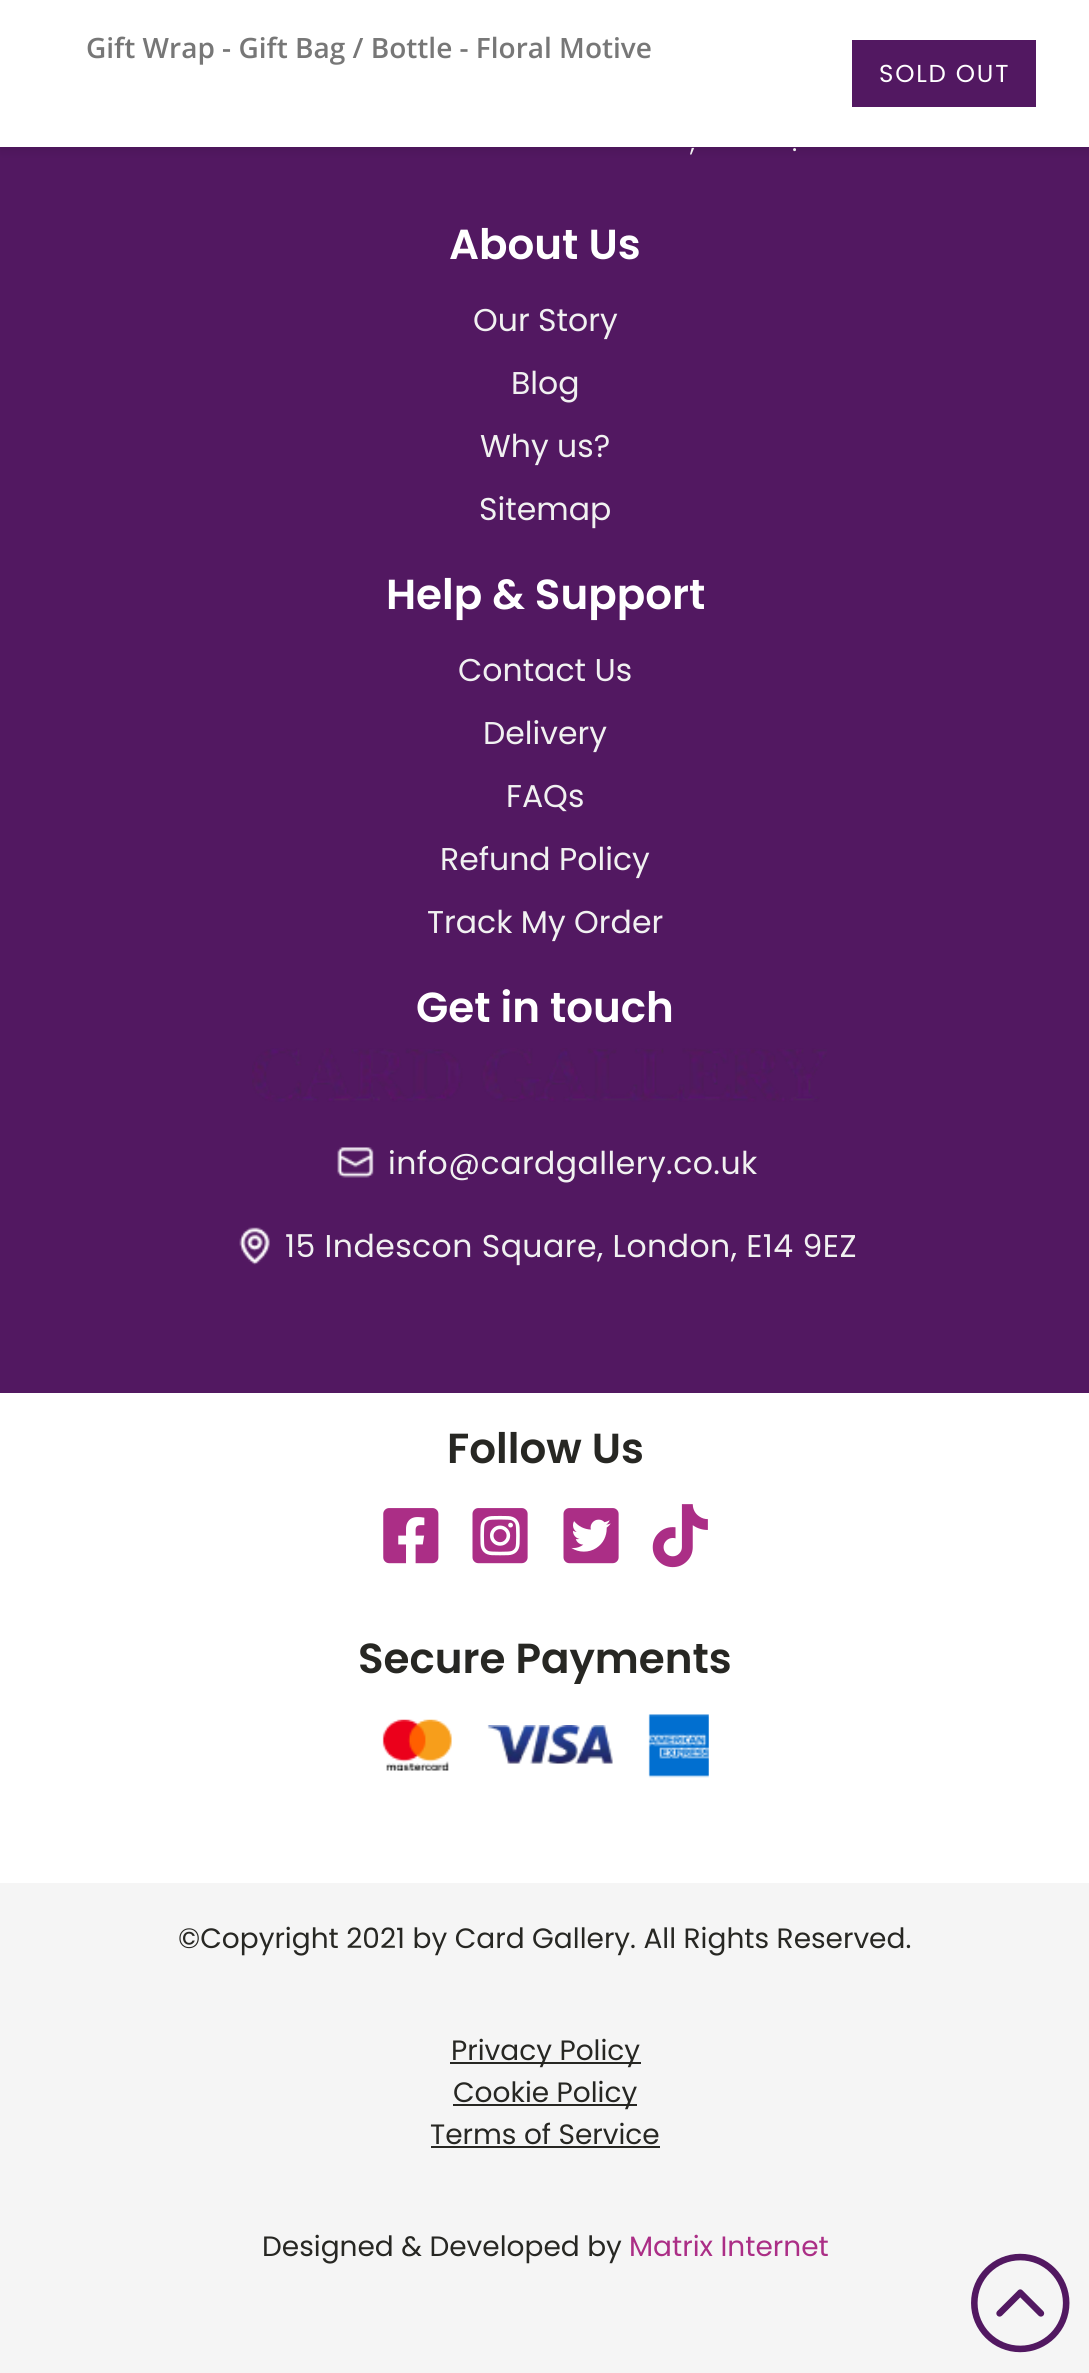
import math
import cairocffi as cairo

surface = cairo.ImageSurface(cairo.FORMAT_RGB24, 1089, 2373)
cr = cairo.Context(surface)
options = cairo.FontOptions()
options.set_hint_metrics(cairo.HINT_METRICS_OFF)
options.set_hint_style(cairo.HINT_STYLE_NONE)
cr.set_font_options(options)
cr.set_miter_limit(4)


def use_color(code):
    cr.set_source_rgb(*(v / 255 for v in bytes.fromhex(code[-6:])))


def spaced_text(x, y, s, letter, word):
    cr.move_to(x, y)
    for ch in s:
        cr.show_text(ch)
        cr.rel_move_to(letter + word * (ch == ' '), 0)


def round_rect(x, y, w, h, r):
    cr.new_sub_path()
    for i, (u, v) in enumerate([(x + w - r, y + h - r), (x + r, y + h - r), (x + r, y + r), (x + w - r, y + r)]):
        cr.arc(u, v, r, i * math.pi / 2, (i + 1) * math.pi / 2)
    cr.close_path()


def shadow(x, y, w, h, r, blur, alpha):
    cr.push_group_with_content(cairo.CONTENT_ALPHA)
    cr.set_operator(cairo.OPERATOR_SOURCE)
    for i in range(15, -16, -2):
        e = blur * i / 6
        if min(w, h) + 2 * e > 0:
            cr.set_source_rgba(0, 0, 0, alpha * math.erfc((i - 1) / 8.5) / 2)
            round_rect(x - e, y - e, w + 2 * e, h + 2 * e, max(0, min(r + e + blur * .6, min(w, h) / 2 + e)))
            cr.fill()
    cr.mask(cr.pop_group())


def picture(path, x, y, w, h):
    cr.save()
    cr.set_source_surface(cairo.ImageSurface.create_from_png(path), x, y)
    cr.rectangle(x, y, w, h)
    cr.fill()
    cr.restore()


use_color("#ffffff")
cr.paint()
use_color("#521861")
cr.rectangle(0, 147, 1089, 1246)
cr.fill()
use_color("#000000")
shadow(0, 5, 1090, 147, 0, 4.5, 0.08)
use_color("#ffffff")
cr.rectangle(0, 0, 1089, 147)
cr.fill()
cr.select_font_face("Open Sans SemiBold")
cr.set_font_size(28)
use_color("#777777")
cr.move_to(86, 58)
cr.show_text("Gift Wrap - Gift Bag / Bottle - Floral Motive")
use_color("#521861")
cr.rectangle(852, 40, 184, 67)
cr.fill()
cr.select_font_face("Poppins")
cr.set_font_size(24.5)
use_color("#ffffff")
spaced_text(879, 82, "SOLD OUT", 1.75, 0)
use_color("#f1f1f1")
cr.move_to(690, 151)
cr.show_text(",")
cr.move_to(792, 151)
cr.show_text(".")
cr.select_font_face("Poppins SemiBold")
cr.set_font_size(42)
use_color("#ffffff")
cr.move_to(449, 259)
cr.show_text("About Us")
cr.select_font_face("Poppins")
cr.set_font_size(31.5)
use_color("#f1f1f1")
cr.move_to(473, 331)
cr.show_text("Our Story")
cr.move_to(511, 394)
cr.show_text("Blog")
cr.move_to(480, 457)
cr.show_text("Why us?")
cr.move_to(479, 520)
cr.show_text("Sitemap")
cr.select_font_face("Poppins SemiBold")
cr.set_font_size(42)
use_color("#ffffff")
cr.move_to(386, 609)
cr.show_text("Help & Support")
cr.select_font_face("Poppins")
cr.set_font_size(31.5)
use_color("#f1f1f1")
cr.move_to(458, 681)
cr.show_text("Contact Us")
cr.move_to(483, 744)
cr.show_text("Delivery")
cr.move_to(506, 807)
cr.show_text("FAQs")
cr.move_to(440, 870)
cr.show_text("Refund Policy")
cr.move_to(427, 933)
cr.show_text("Track My Order")
cr.select_font_face("Poppins SemiBold")
cr.set_font_size(42)
use_color("#ffffff")
cr.move_to(416, 1022)
cr.show_text("Get in touch")
picture("img1.png", 252, 1048, 575, 54)
picture("img2.png", 337, 1147, 37, 31)
cr.select_font_face("Poppins")
cr.set_font_size(31.5)
use_color("#f1f1f1")
spaced_text(388, 1174, "info@cardgallery.co.uk", 0.45, 0)
picture("img3.png", 239, 1227, 31, 38)
spaced_text(285, 1257, "15 Indescon Square, London, E14 9EZ", 0.45, 0)
cr.select_font_face("Poppins SemiBold")
cr.set_font_size(42)
use_color("#272723")
cr.move_to(447, 1463)
cr.show_text("Follow Us")
picture("img4.png", 383, 1508, 56, 56)
picture("img5.png", 472, 1508, 56, 56)
picture("img6.png", 563, 1508, 56, 56)
picture("img7.png", 652, 1504, 56, 64)
cr.move_to(358, 1673)
cr.show_text("Secure Payments")
picture("img8.png", 382, 1719, 70, 52)
picture("img9.png", 487, 1725, 126, 39)
picture("img10.png", 648, 1714, 61, 64)
use_color("#f5f5f5")
cr.rectangle(0, 1883, 1089, 490)
cr.fill()
cr.select_font_face("Poppins")
cr.set_font_size(28)
use_color("#272723")
cr.move_to(178, 1948)
cr.show_text("©Copyright 2021 by Card Gallery. All Rights Reserved.")
cr.rectangle(450, 2062, 191, 2)
cr.fill()
cr.move_to(451, 2060)
cr.show_text("Privacy Policy")
cr.rectangle(453, 2104, 184, 2)
cr.fill()
cr.move_to(453, 2102)
cr.show_text("Cookie Policy")
cr.move_to(430, 2144)
cr.show_text("Terms of Service")
cr.rectangle(431, 2146, 229, 2)
cr.fill()
cr.move_to(262, 2256)
cr.show_text("Designed & Developed by")
use_color("#ab2e86")
cr.move_to(629, 2256)
cr.show_text("Matrix Internet")
picture("img11.png", 971, 2253, 99, 100)
surface.write_to_png("result.png")
